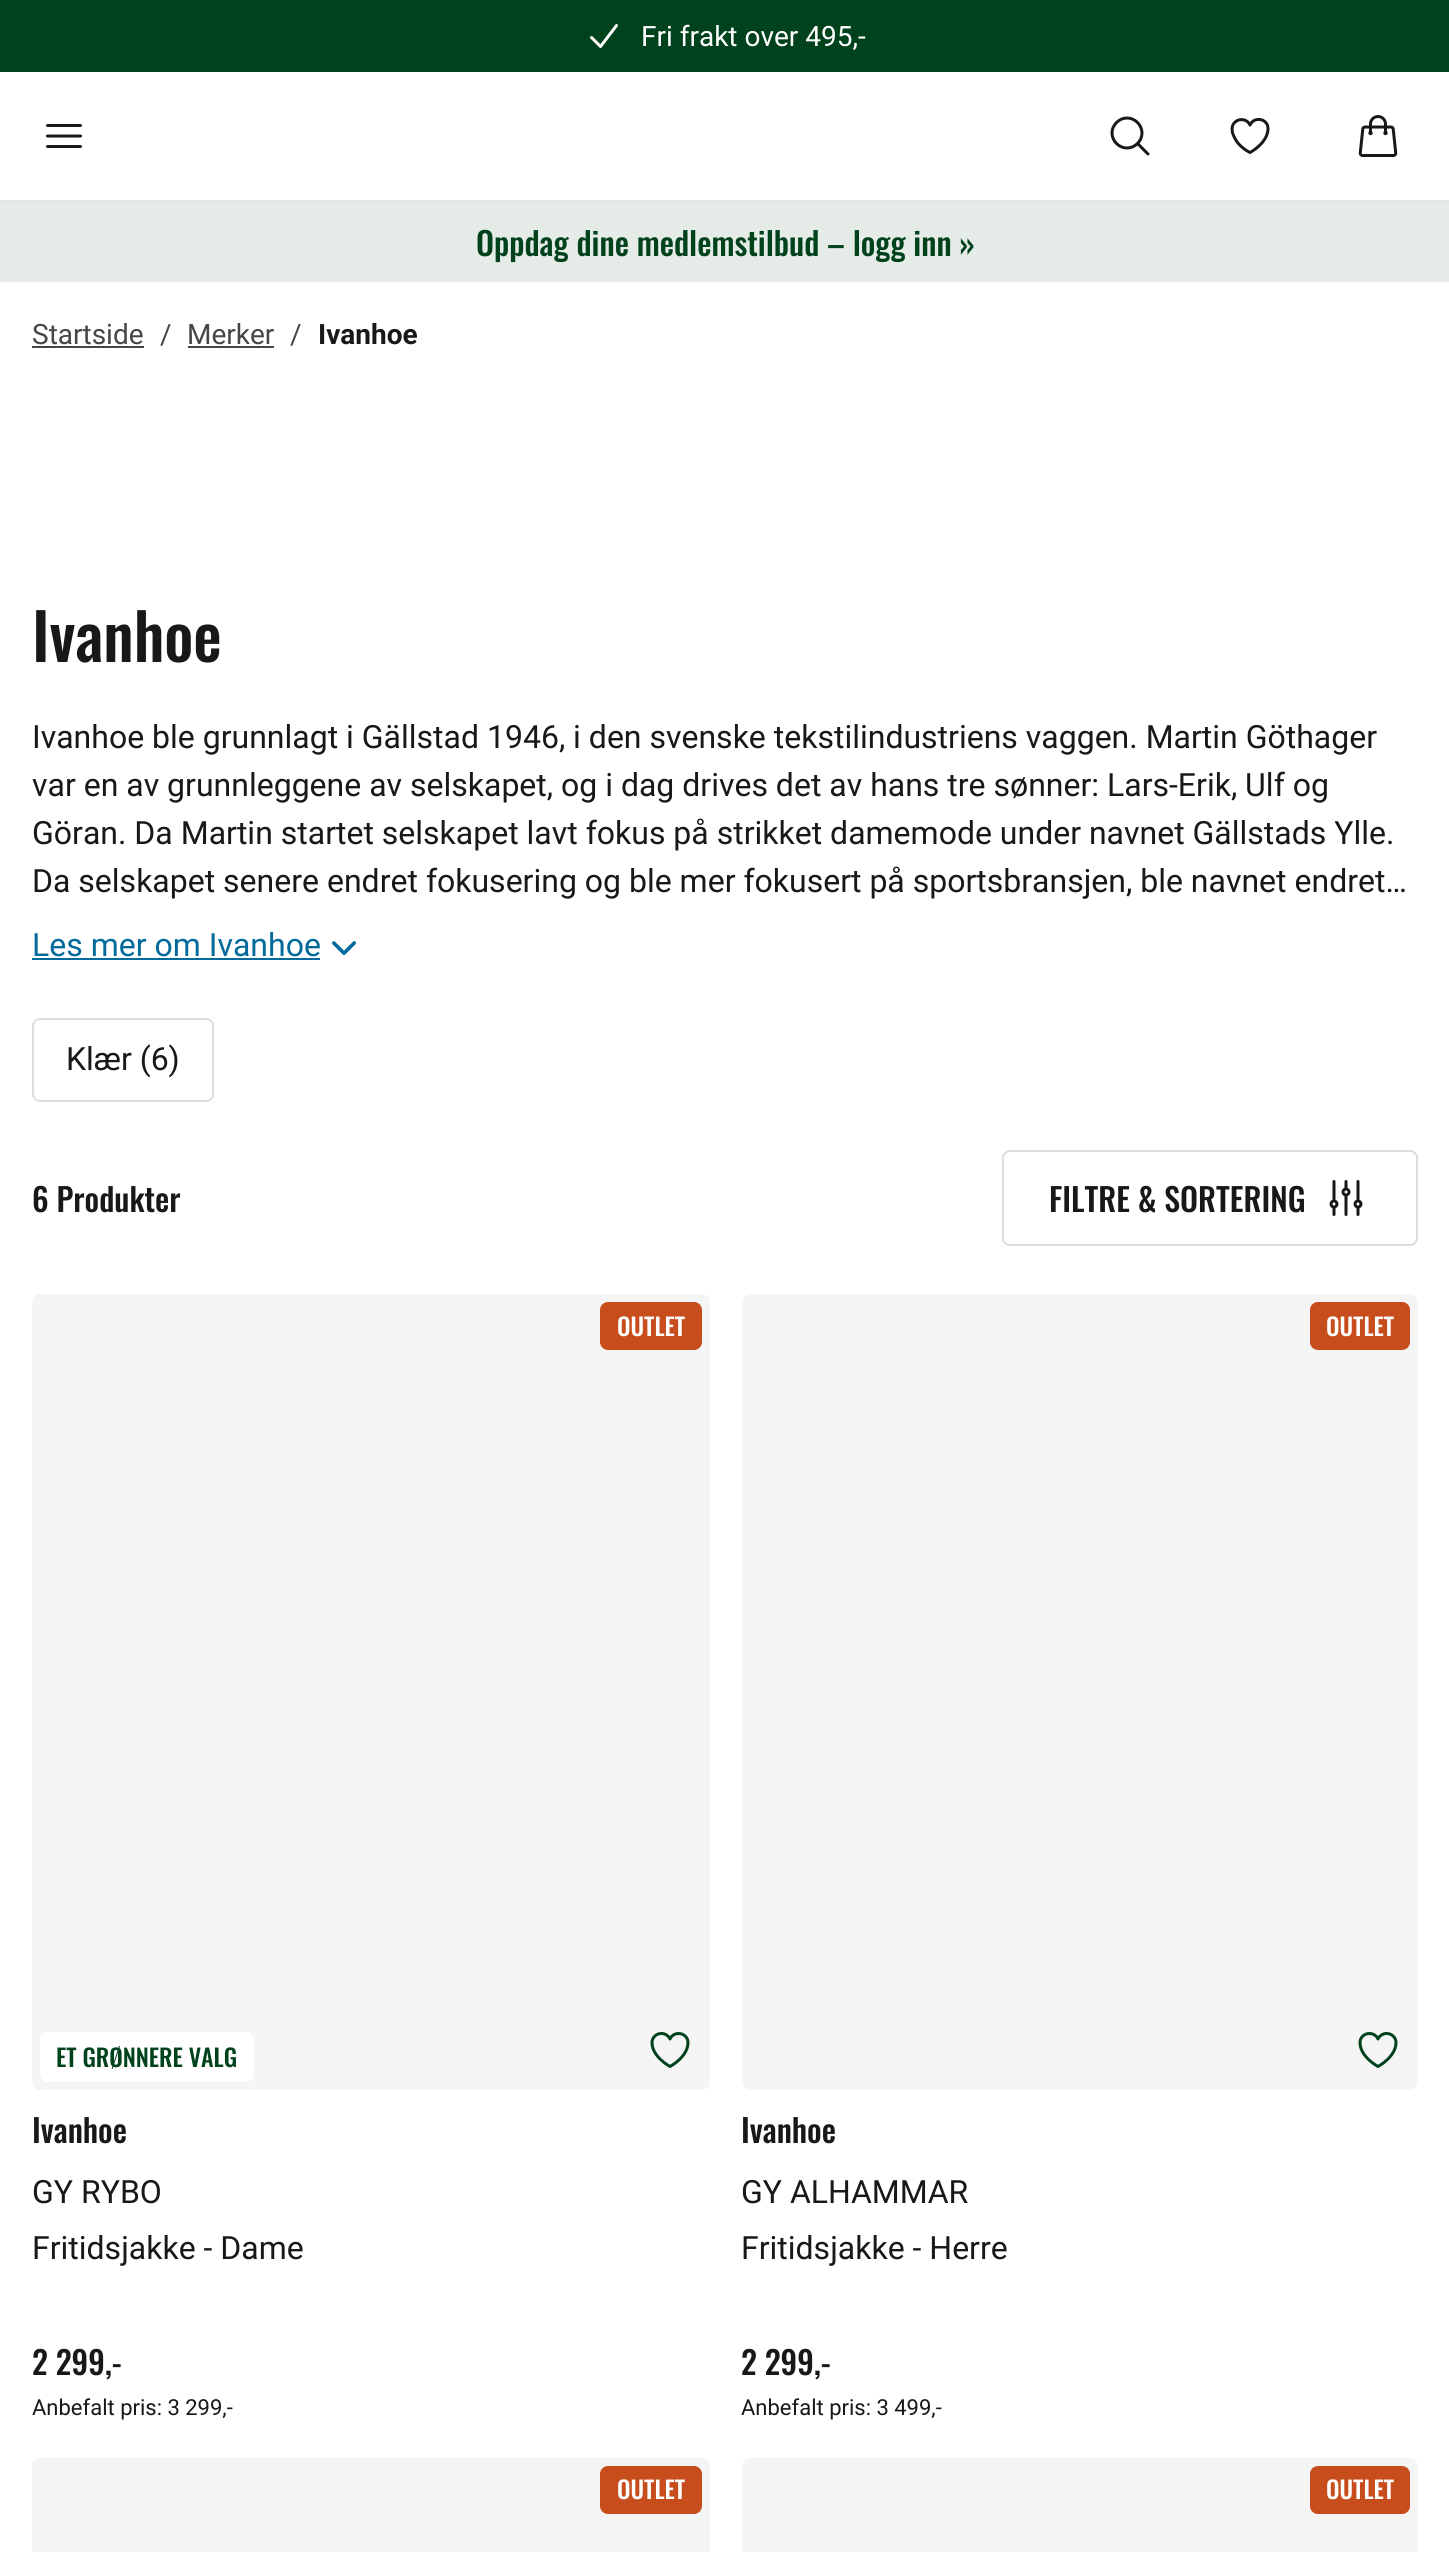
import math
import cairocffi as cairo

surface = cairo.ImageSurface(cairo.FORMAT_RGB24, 1449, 2552)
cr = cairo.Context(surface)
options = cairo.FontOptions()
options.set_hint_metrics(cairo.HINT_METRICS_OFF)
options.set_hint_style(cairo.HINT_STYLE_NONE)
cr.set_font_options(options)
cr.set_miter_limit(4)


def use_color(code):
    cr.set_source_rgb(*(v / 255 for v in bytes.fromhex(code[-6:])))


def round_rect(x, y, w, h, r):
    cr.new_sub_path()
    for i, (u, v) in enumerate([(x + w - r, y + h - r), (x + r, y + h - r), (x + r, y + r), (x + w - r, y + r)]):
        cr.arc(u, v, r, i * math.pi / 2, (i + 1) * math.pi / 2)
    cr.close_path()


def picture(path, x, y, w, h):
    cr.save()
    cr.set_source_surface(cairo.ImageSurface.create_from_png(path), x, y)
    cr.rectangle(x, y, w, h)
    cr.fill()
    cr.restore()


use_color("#ffffff")
cr.paint()
use_color("#00421b")
cr.rectangle(0, 0, 1449, 72)
cr.fill()
picture("img1.png", 590, 24, 28, 24)
cr.select_font_face("Roboto")
cr.set_font_size(28)
use_color("#ffffff")
cr.move_to(641, 46)
cr.show_text("Fri frakt over 495,-")
use_color("#e5e5e5")
cr.rectangle(0, 200, 1449, 2)
cr.fill()
cr.new_path()
cr.move_to(47.5, 125.5)
cr.line_to(80.5, 125.5)
cr.move_to(47.5, 136)
cr.line_to(80.5, 136)
cr.move_to(47.5, 146.5)
cr.line_to(80.5, 146.5)
use_color("#181818")
cr.set_line_width(3)
cr.set_line_cap(cairo.LINE_CAP_ROUND)
cr.set_line_join(cairo.LINE_JOIN_ROUND)
cr.stroke()
cr.new_path()
cr.move_to(1148, 154)
cr.line_to(1137.5, 143.5)
cr.move_to(1137.5, 143.5)
cr.curve_to(1143.5, 137.5, 1143.5, 128.5, 1137.5, 122.5)
cr.curve_to(1131.5, 116.5, 1122.5, 116.5, 1116.5, 122.5)
cr.curve_to(1110.5, 128.5, 1110.5, 137.5, 1116.5, 143.5)
cr.curve_to(1122.5, 149.5, 1131.5, 149.5, 1137.5, 143.5)
cr.close_path()
cr.stroke()
cr.new_path()
cr.move_to(1268, 128.5)
cr.curve_to(1268, 118.5, 1254, 116, 1250, 125)
cr.curve_to(1245, 114, 1224.5, 120.5, 1235, 138.5)
cr.curve_to(1238, 144.5, 1244, 149.5, 1250, 152.5)
cr.curve_to(1250, 152.5, 1268, 143, 1268, 128.5)
cr.close_path()
cr.stroke()
picture("img2.png", 1358, 115, 40, 42)
use_color("#e5ece8")
cr.rectangle(0, 202, 1449, 80)
cr.fill()
cr.select_font_face("Oswald Medium")
cr.set_font_size(32)
use_color("#00421b")
cr.move_to(476, 256)
cr.show_text("Oppdag dine medlemstilbud – logg inn »")
cr.select_font_face("Roboto")
cr.set_font_size(28)
use_color("#464646")
cr.move_to(32, 344)
cr.show_text("Startside")
cr.rectangle(32, 346, 112, 2)
cr.fill()
cr.move_to(160, 344)
cr.show_text("/")
cr.move_to(187, 344)
cr.show_text("Merker")
cr.rectangle(188, 346, 86, 2)
cr.fill()
cr.move_to(290, 344)
cr.show_text("/")
cr.select_font_face("Roboto", cairo.FONT_SLANT_NORMAL, cairo.FONT_WEIGHT_BOLD)
use_color("#181818")
cr.move_to(318, 344)
cr.show_text("Ivanhoe")
cr.select_font_face("Oswald Medium")
cr.set_font_size(64)
cr.move_to(32, 662)
cr.show_text("Ivanhoe")
cr.select_font_face("Roboto")
cr.set_font_size(32)
cr.move_to(32, 748)
cr.show_text("Ivanhoe ble grunnlagt i Gällstad 1946, i den svenske tekstilindustriens vaggen. Martin Göthager")
cr.move_to(32, 796)
cr.show_text("var en av grunnleggene av selskapet, og i dag drives det av hans tre sønner: Lars-Erik, Ulf og")
cr.move_to(32, 844)
cr.show_text("Göran. Da Martin startet selskapet lavt fokus på strikket damemode under navnet Gällstads Ylle.")
cr.move_to(32, 892)
cr.show_text("Da selskapet senere endret fokusering og ble mer fokusert på sportsbransjen, ble navnet endret…")
use_color("#026a9a")
cr.move_to(32, 956)
cr.show_text("Les mer om Ivanhoe")
cr.rectangle(32, 958, 288, 2)
cr.fill()
picture("img3.png", 332, 941, 24, 14)
round_rect(33, 1019, 180, 82, 7)
use_color("#dddddd")
cr.set_line_width(2)
cr.set_line_cap(cairo.LINE_CAP_BUTT)
cr.set_line_join(cairo.LINE_JOIN_MITER)
cr.stroke()
use_color("#181818")
cr.move_to(66, 1070)
cr.show_text("Klær (6)")
cr.select_font_face("Oswald Medium")
cr.move_to(32, 1212)
cr.show_text("6 Produkter")
round_rect(1003, 1151, 414, 94, 7)
use_color("#dddddd")
cr.stroke()
use_color("#181818")
cr.move_to(1049, 1212)
cr.show_text("FILTRE & SORTERING")
picture("img4.png", 1329, 1180, 34, 36)
use_color("#f5f5f5")
round_rect(32, 1294, 678, 796, 8)
cr.fill()
use_color("#c84d1c")
round_rect(600, 1302, 102, 48, 8)
cr.fill()
cr.set_font_size(24)
use_color("#ffffff")
cr.move_to(617, 1336)
cr.show_text("OUTLET")
round_rect(40, 2032, 214, 50, 8)
cr.fill()
use_color("#00421b")
cr.move_to(56, 2067)
cr.show_text("ET GRØNNERE VALG")
picture("img5.png", 650, 2032, 40, 36)
cr.set_font_size(32)
use_color("#181818")
cr.move_to(32, 2143)
cr.show_text("Ivanhoe")
cr.select_font_face("Roboto")
cr.move_to(32, 2203)
cr.show_text("GY RYBO")
cr.move_to(32, 2259)
cr.show_text("Fritidsjakke - Dame")
cr.select_font_face("Oswald Medium")
cr.move_to(32, 2375)
cr.show_text("2 299,-")
cr.select_font_face("Roboto")
cr.set_font_size(22)
cr.move_to(32, 2415)
cr.show_text("Anbefalt pris: 3 299,-")
use_color("#f5f5f5")
round_rect(742, 1294, 676, 796, 8)
cr.fill()
picture("img5.png", 1358, 2032, 40, 36)
use_color("#c84d1c")
round_rect(1310, 1302, 100, 48, 8)
cr.fill()
cr.select_font_face("Oswald Medium")
cr.set_font_size(24)
use_color("#ffffff")
cr.move_to(1326, 1336)
cr.show_text("OUTLET")
cr.set_font_size(32)
use_color("#181818")
cr.move_to(741, 2143)
cr.show_text("Ivanhoe")
cr.select_font_face("Roboto")
cr.move_to(741, 2203)
cr.show_text("GY ALHAMMAR")
cr.move_to(741, 2259)
cr.show_text("Fritidsjakke - Herre")
cr.select_font_face("Oswald Medium")
cr.move_to(741, 2375)
cr.show_text("2 299,-")
cr.select_font_face("Roboto")
cr.set_font_size(22)
cr.move_to(741, 2415)
cr.show_text("Anbefalt pris: 3 499,-")
use_color("#f5f5f5")
round_rect(32, 2458, 678, 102, 8)
cr.fill()
use_color("#c84d1c")
round_rect(600, 2466, 102, 48, 8)
cr.fill()
cr.select_font_face("Oswald Medium")
cr.set_font_size(24)
use_color("#ffffff")
cr.move_to(617, 2499)
cr.show_text("OUTLET")
use_color("#f5f5f5")
round_rect(742, 2458, 676, 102, 8)
cr.fill()
use_color("#c84d1c")
round_rect(1310, 2466, 100, 48, 8)
cr.fill()
use_color("#ffffff")
cr.move_to(1326, 2499)
cr.show_text("OUTLET")
surface.write_to_png("result.png")
